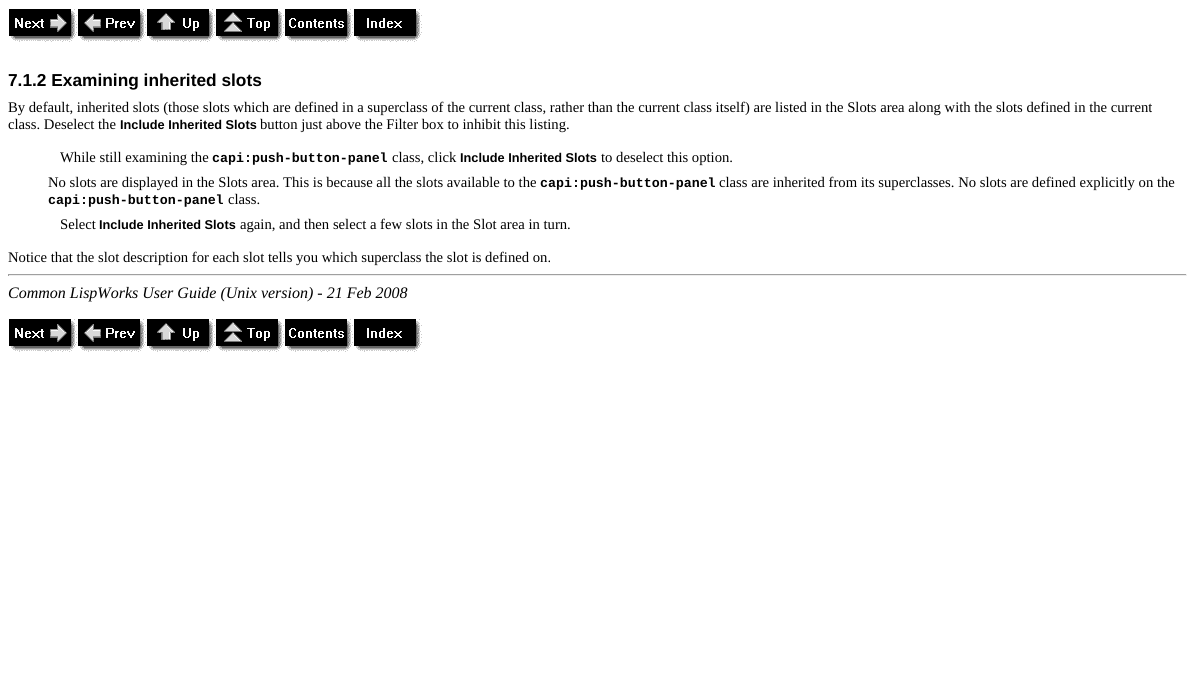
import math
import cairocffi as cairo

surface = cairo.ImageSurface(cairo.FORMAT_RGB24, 1195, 681)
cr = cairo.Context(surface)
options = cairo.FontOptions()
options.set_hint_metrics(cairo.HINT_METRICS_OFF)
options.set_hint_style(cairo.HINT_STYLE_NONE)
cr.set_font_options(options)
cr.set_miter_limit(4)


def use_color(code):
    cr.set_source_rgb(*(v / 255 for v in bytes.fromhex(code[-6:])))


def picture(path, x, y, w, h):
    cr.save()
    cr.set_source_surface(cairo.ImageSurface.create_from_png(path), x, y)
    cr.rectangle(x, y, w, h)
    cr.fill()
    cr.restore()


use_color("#ffffff")
cr.paint()
picture("img1.png", 9, 9, 68, 33)
picture("img2.png", 78, 9, 68, 33)
picture("img3.png", 147, 9, 68, 33)
picture("img4.png", 216, 9, 68, 33)
picture("img5.png", 285, 9, 68, 33)
picture("img6.png", 354, 9, 68, 33)
cr.select_font_face("Liberation Sans", cairo.FONT_SLANT_NORMAL, cairo.FONT_WEIGHT_BOLD)
cr.set_font_size(17.3)
use_color("#000000")
cr.move_to(8, 86)
cr.show_text("7.1.2 Examining inherited slots")
cr.select_font_face("Liberation Serif")
cr.set_font_size(14.67)
cr.move_to(8, 112)
cr.show_text("By default, inherited slots (those slots which are defined in a superclass of the current class, rather than the current class itself) are listed in the Slots area along with the slots defined in the current")
cr.move_to(8, 129)
cr.show_text("class. Deselect the")
cr.select_font_face("Liberation Sans", cairo.FONT_SLANT_NORMAL, cairo.FONT_WEIGHT_BOLD)
cr.set_font_size(12.75)
cr.move_to(120, 129)
cr.show_text("Include Inherited Slots")
cr.select_font_face("Liberation Serif")
cr.set_font_size(14.67)
cr.move_to(260, 129)
cr.show_text("button just above the Filter box to inhibit this listing.")
cr.move_to(60, 162)
cr.show_text("While still examining the")
cr.select_font_face("Liberation Mono", cairo.FONT_SLANT_NORMAL, cairo.FONT_WEIGHT_BOLD)
cr.set_font_size(13.3)
cr.move_to(212, 162)
cr.show_text("capi:push-button-panel")
cr.select_font_face("Liberation Serif")
cr.set_font_size(14.67)
cr.move_to(392, 162)
cr.show_text("class, click")
cr.select_font_face("Liberation Sans", cairo.FONT_SLANT_NORMAL, cairo.FONT_WEIGHT_BOLD)
cr.set_font_size(12.75)
cr.move_to(460, 162)
cr.show_text("Include Inherited Slots")
cr.select_font_face("Liberation Serif")
cr.set_font_size(14.67)
cr.move_to(601, 162)
cr.show_text("to deselect this option.")
cr.move_to(48, 187)
cr.show_text("No slots are displayed in the Slots area. This is because all the slots available to the")
cr.select_font_face("Liberation Mono", cairo.FONT_SLANT_NORMAL, cairo.FONT_WEIGHT_BOLD)
cr.set_font_size(13.3)
cr.move_to(540, 187)
cr.show_text("capi:push-button-panel")
cr.select_font_face("Liberation Serif")
cr.set_font_size(14.67)
cr.move_to(719, 187)
cr.show_text("class are inherited from its superclasses. No slots are defined explicitly on the")
cr.select_font_face("Liberation Mono", cairo.FONT_SLANT_NORMAL, cairo.FONT_WEIGHT_BOLD)
cr.set_font_size(13.3)
cr.move_to(48, 204)
cr.show_text("capi:push-button-panel")
cr.select_font_face("Liberation Serif")
cr.set_font_size(14.67)
cr.move_to(228, 204)
cr.show_text("class.")
cr.move_to(60, 229)
cr.show_text("Select")
cr.select_font_face("Liberation Sans", cairo.FONT_SLANT_NORMAL, cairo.FONT_WEIGHT_BOLD)
cr.set_font_size(12.75)
cr.move_to(99, 229)
cr.show_text("Include Inherited Slots")
cr.select_font_face("Liberation Serif")
cr.set_font_size(14.67)
cr.move_to(240, 229)
cr.show_text("again, and then select a few slots in the Slot area in turn.")
cr.move_to(8, 262)
cr.show_text("Notice that the slot description for each slot tells you which superclass the slot is defined on.")
use_color("#9f9f9f")
cr.rectangle(8, 274, 1179, 1)
cr.fill()
use_color("#eeeeee")
cr.rectangle(1186, 274, 1, 2)
cr.fill()
cr.rectangle(8, 275, 1179, 1)
cr.fill()
use_color("#9f9f9f")
cr.rectangle(8, 274, 1, 2)
cr.fill()
cr.select_font_face("Liberation Serif", cairo.FONT_SLANT_ITALIC)
cr.set_font_size(16)
use_color("#000000")
cr.move_to(8, 298)
cr.show_text("Common LispWorks User Guide (Unix version) - 21 Feb 2008")
picture("img1.png", 9, 319, 68, 33)
picture("img2.png", 78, 319, 68, 33)
picture("img3.png", 147, 319, 68, 33)
picture("img4.png", 216, 319, 68, 33)
picture("img5.png", 285, 319, 68, 33)
picture("img6.png", 354, 319, 68, 33)
surface.write_to_png("result.png")
